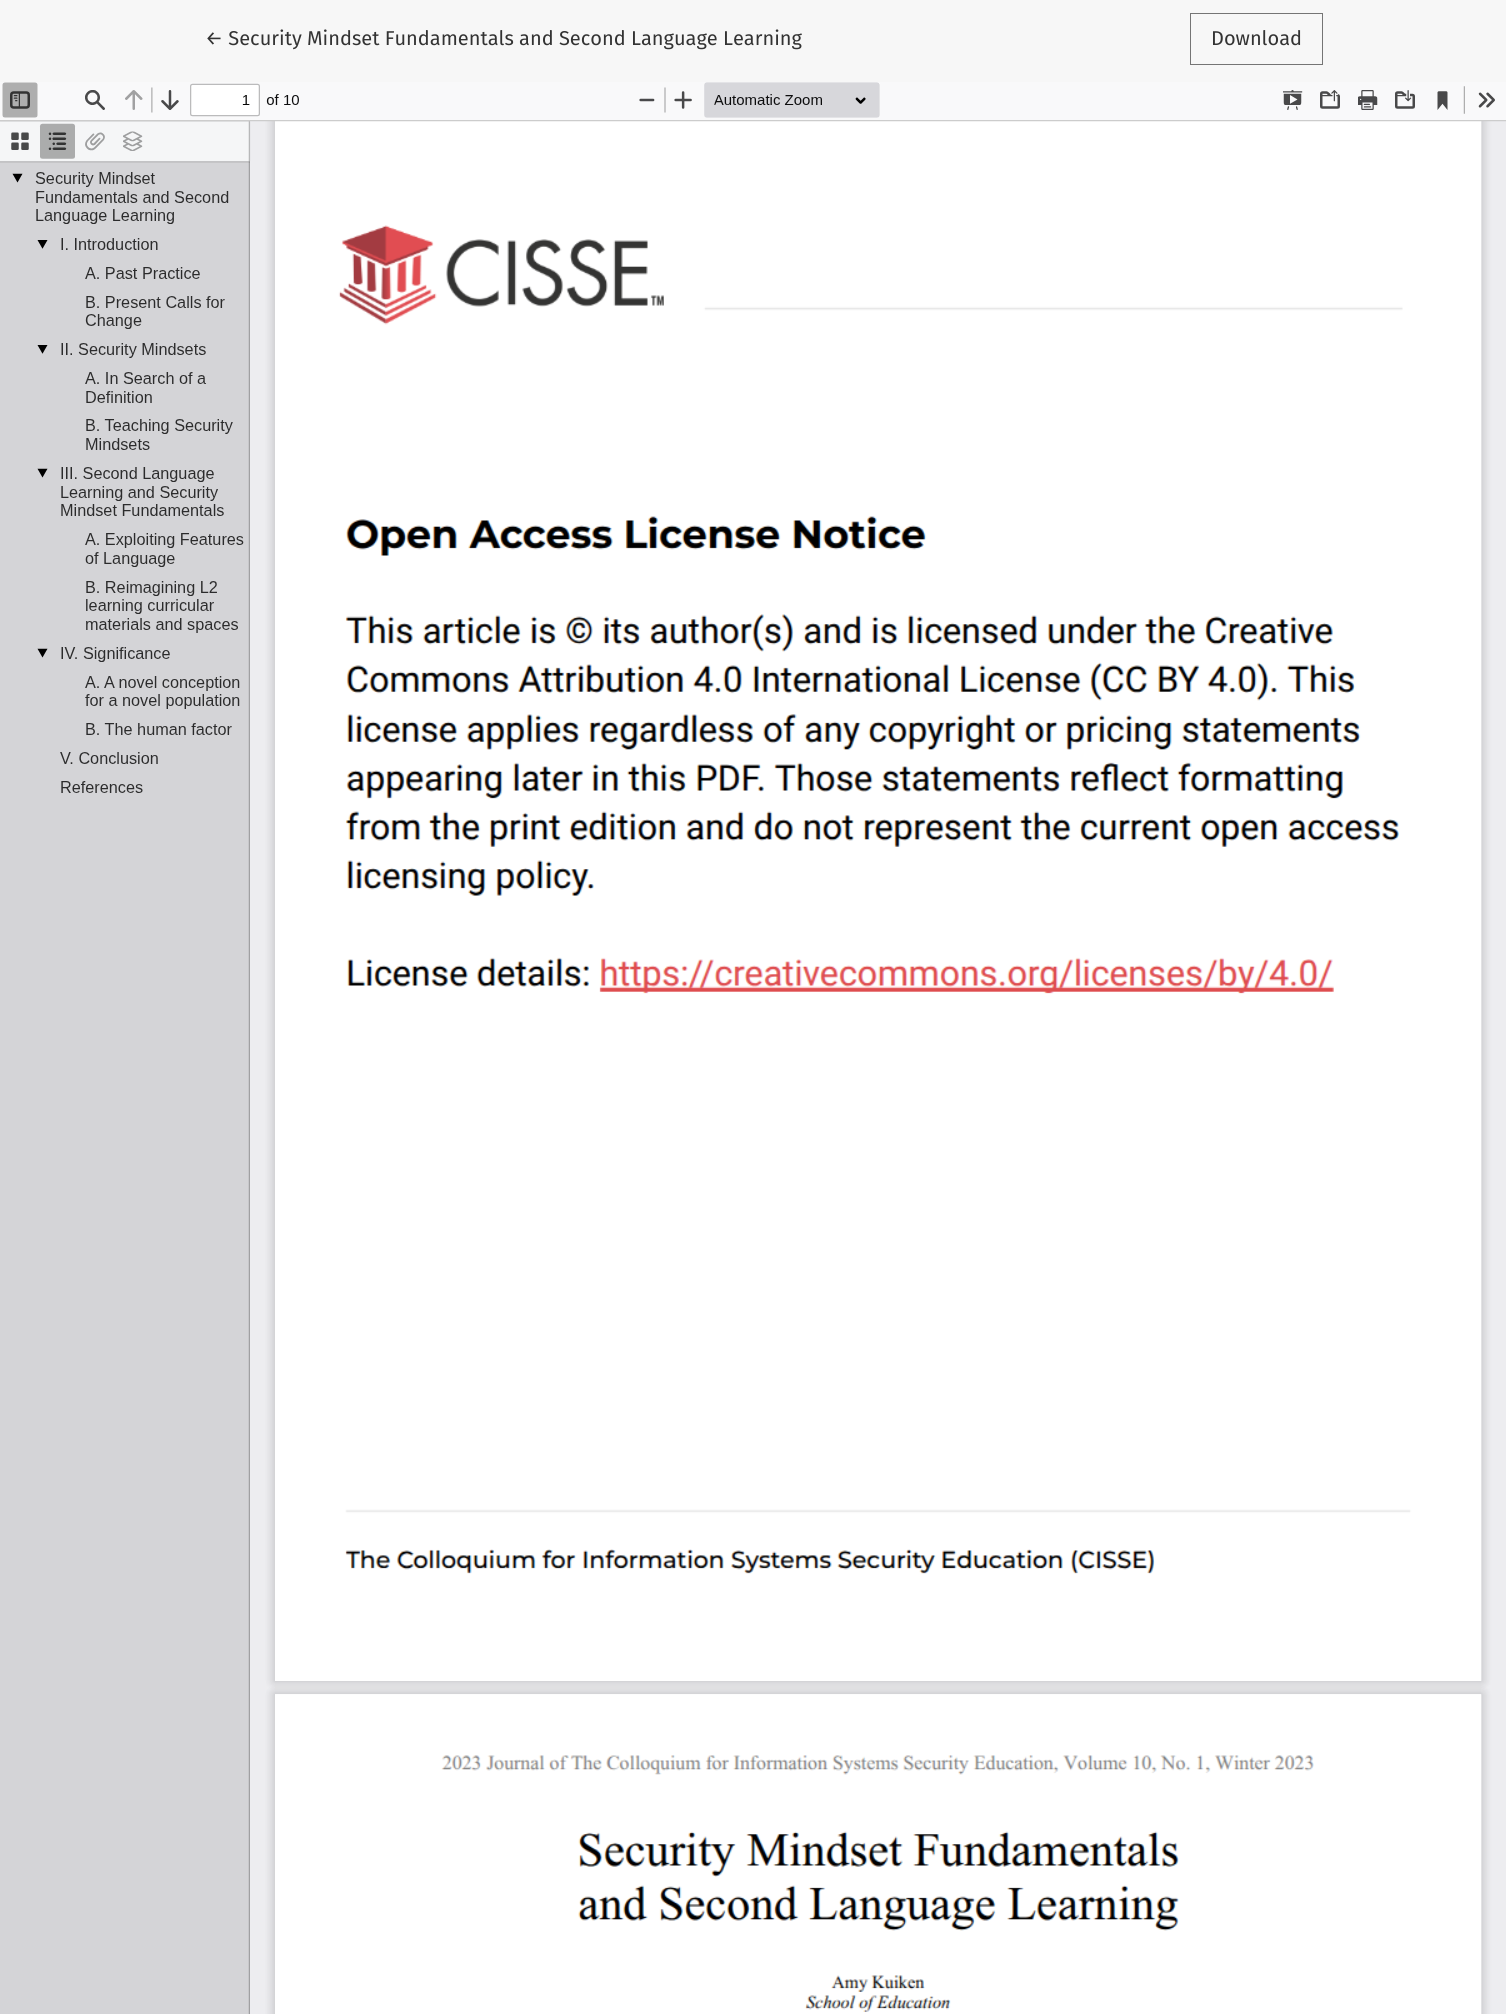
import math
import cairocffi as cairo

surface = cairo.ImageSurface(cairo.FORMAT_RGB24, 1506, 2014)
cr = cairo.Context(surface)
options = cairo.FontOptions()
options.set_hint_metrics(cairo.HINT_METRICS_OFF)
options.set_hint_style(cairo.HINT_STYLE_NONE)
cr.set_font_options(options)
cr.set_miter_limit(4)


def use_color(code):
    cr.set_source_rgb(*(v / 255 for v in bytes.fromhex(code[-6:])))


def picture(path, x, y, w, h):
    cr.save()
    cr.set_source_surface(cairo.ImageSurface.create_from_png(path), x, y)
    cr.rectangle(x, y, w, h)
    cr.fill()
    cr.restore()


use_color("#f7f7f7")
cr.paint()
cr.select_font_face("Fira Sans")
cr.set_font_size(20)
use_color("#333333")
cr.move_to(205, 45)
cr.show_text("← Security Mindset Fundamentals and Second Language Learning")
cr.rectangle(1190.5, 13.5, 132, 51)
use_color("#757575")
cr.set_line_width(1)
cr.stroke()
use_color("#333333")
cr.move_to(1211, 45)
cr.show_text("Download")
picture("img1.png", 0, 82, 1506, 1932)
surface.write_to_png("result.png")
